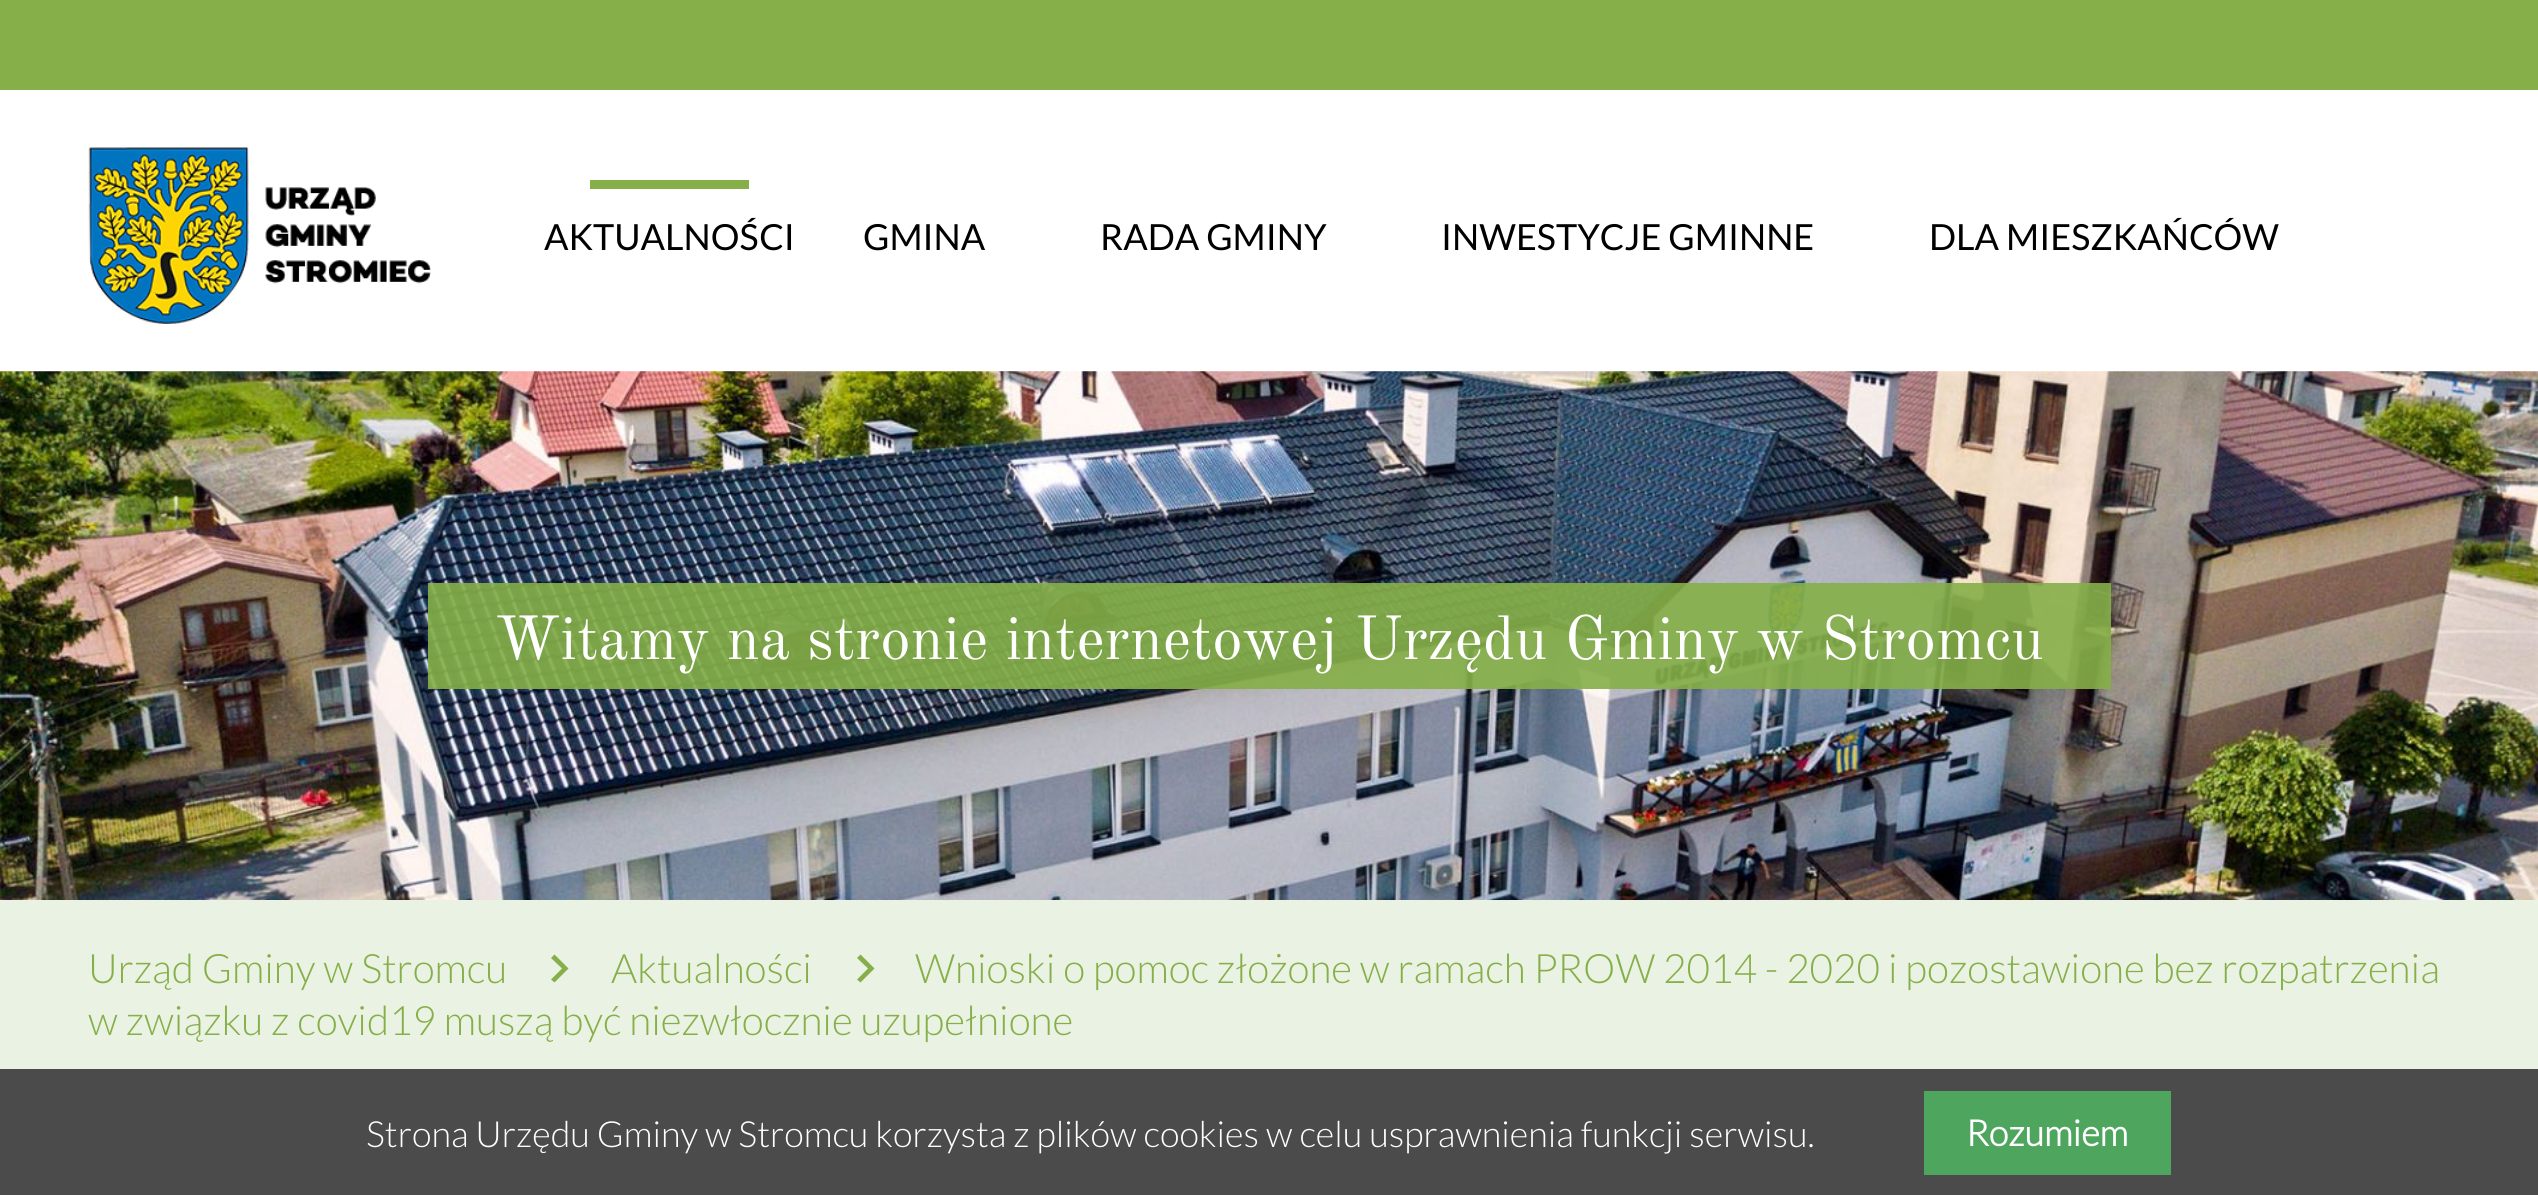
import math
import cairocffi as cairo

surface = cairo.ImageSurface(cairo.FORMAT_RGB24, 2538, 1195)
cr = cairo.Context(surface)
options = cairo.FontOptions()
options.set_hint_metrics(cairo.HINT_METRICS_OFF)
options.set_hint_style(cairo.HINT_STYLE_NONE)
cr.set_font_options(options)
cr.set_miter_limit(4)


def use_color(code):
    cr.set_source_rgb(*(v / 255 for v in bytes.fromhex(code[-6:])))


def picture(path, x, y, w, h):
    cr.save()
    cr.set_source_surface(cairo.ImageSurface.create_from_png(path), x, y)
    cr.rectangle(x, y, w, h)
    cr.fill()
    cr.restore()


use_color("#ffffff")
cr.paint()
use_color("#86af49")
cr.rectangle(0, 0, 2538, 90)
cr.fill()
picture("img1.png", 88, 147, 343, 177)
cr.rectangle(590, 180, 159, 9)
cr.fill()
cr.select_font_face("Lato")
cr.set_font_size(36)
use_color("#000000")
cr.move_to(544, 250)
cr.show_text("AKTUALNOŚCI")
cr.move_to(863, 250)
cr.show_text("GMINA")
cr.move_to(1100, 250)
cr.show_text("RADA GMINY")
cr.move_to(1441, 250)
cr.show_text("INWESTYCJE GMINNE")
cr.move_to(1929, 250)
cr.show_text("DLA MIESZKAŃCÓW")
picture("img2.png", 0, 371, 2538, 529)
cr.set_source_rgba(0.525, 0.686, 0.286, 0.9)
cr.rectangle(428, 583, 1683, 106)
cr.fill()
cr.select_font_face("Old Standard TT")
cr.set_font_size(61.2)
use_color("#ffffff")
cr.move_to(495, 659)
cr.show_text("Witamy na stronie internetowej Urzędu Gminy w Stromcu")
use_color("#eaf2e3")
cr.rectangle(0, 900, 2538, 169)
cr.fill()
use_color("#86af49")
cr.new_path()
cr.move_to(860.5, 954.5)
cr.line_to(874.5, 968.5)
cr.line_to(860.5, 982.5)
cr.line_to(857, 979.5)
cr.line_to(868, 968.5)
cr.line_to(857, 958)
cr.close_path()
cr.fill()
cr.select_font_face("Lato Light")
cr.set_font_size(40.5)
cr.move_to(915, 983)
cr.show_text("Wnioski o pomoc złożone w ramach PROW 2014 - 2020 i pozostawione bez rozpatrzenia")
cr.move_to(88, 1035)
cr.show_text("w związku z covid19 muszą być niezwłocznie uzupełnione")
cr.move_to(88, 983)
cr.show_text("Urząd Gminy w Stromcu")
cr.new_path()
cr.move_to(554.5, 954.5)
cr.line_to(568.5, 968.5)
cr.line_to(554.5, 982.5)
cr.line_to(551, 979.5)
cr.line_to(562, 968.5)
cr.line_to(551, 958)
cr.close_path()
cr.fill()
cr.move_to(611, 983)
cr.show_text("Aktualności")
use_color("#4b4b4b")
cr.rectangle(0, 1069, 2538, 126)
cr.fill()
cr.set_font_size(36)
use_color("#ffffff")
cr.move_to(366, 1147)
cr.show_text("Strona Urzędu Gminy w Stromcu korzysta z plików cookies w celu usprawnienia funkcji serwisu.")
use_color("#4ea55e")
cr.rectangle(1924, 1091, 247, 84)
cr.fill()
cr.select_font_face("Lato", cairo.FONT_SLANT_NORMAL, cairo.FONT_WEIGHT_BOLD)
use_color("#ffffff")
cr.move_to(1966, 1146)
cr.show_text("Rozumiem")
surface.write_to_png("result.png")
